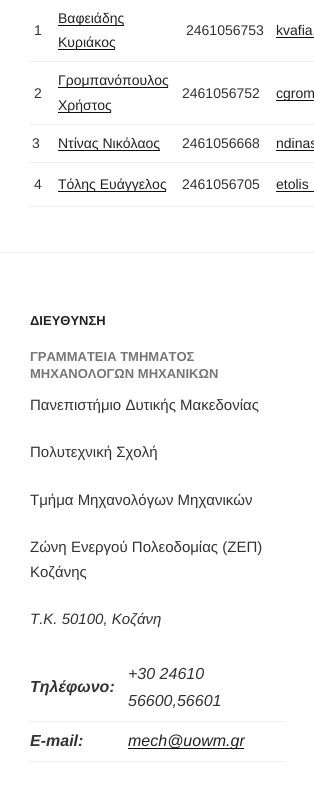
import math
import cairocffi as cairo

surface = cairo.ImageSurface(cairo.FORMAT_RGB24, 314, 804)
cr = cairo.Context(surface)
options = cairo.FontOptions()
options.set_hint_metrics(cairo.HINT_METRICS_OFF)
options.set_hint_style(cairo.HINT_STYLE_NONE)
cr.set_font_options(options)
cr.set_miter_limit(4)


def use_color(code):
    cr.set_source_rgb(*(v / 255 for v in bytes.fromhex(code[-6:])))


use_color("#ffffff")
cr.paint()
use_color("#eeeeee")
cr.rectangle(30, 61, 284, 1)
cr.fill()
cr.select_font_face("Liberation Sans")
cr.set_font_size(14)
use_color("#333333")
cr.move_to(34, 35)
cr.show_text("1")
use_color("#0f0f0f")
cr.rectangle(58, 25, 66, 1)
cr.fill()
use_color("#222222")
cr.move_to(58, 23)
cr.show_text("Βαφειάδης")
use_color("#0f0f0f")
cr.rectangle(58, 49, 57, 1)
cr.fill()
use_color("#222222")
cr.move_to(58, 47)
cr.show_text("Κυριάκος")
use_color("#333333")
cr.move_to(186, 35)
cr.show_text("2461056753")
use_color("#222222")
cr.move_to(276, 35)
cr.show_text("kvafia")
use_color("#0f0f0f")
cr.rectangle(276, 37, 38, 1)
cr.fill()
use_color("#eeeeee")
cr.rectangle(30, 124, 284, 1)
cr.fill()
use_color("#333333")
cr.move_to(34, 98)
cr.show_text("2")
use_color("#0f0f0f")
cr.rectangle(58, 87, 110, 1)
cr.fill()
use_color("#222222")
cr.move_to(58, 85)
cr.show_text("Γρομπανόπουλος")
use_color("#0f0f0f")
cr.rectangle(58, 112, 53, 1)
cr.fill()
use_color("#222222")
cr.move_to(58, 110)
cr.show_text("Χρήστος")
use_color("#333333")
cr.move_to(182, 98)
cr.show_text("2461056752")
use_color("#0f0f0f")
cr.rectangle(276, 100, 38, 1)
cr.fill()
use_color("#222222")
cr.move_to(276, 98)
cr.show_text("cgrom")
use_color("#eeeeee")
cr.rectangle(30, 162, 284, 1)
cr.fill()
use_color("#333333")
cr.move_to(32, 148)
cr.show_text("3")
use_color("#0f0f0f")
cr.rectangle(58, 150, 102, 1)
cr.fill()
use_color("#222222")
cr.move_to(58, 148)
cr.show_text("Ντίνας Νικόλαος")
use_color("#333333")
cr.move_to(182, 148)
cr.show_text("2461056668")
use_color("#222222")
cr.move_to(276, 148)
cr.show_text("ndinas")
use_color("#0f0f0f")
cr.rectangle(276, 150, 38, 1)
cr.fill()
use_color("#eeeeee")
cr.rectangle(30, 206, 284, 1)
cr.fill()
use_color("#333333")
cr.move_to(34, 189)
cr.show_text("4")
use_color("#0f0f0f")
cr.rectangle(58, 191, 108, 1)
cr.fill()
use_color("#222222")
cr.move_to(58, 189)
cr.show_text("Τόλης Ευάγγελος")
use_color("#333333")
cr.move_to(182, 189)
cr.show_text("2461056705")
use_color("#222222")
cr.move_to(276, 189)
cr.show_text("etolis")
use_color("#0f0f0f")
cr.rectangle(276, 191, 38, 1)
cr.fill()
use_color("#eeeeee")
cr.rectangle(0, 252, 314, 1)
cr.fill()
cr.select_font_face("Liberation Sans", cairo.FONT_SLANT_NORMAL, cairo.FONT_WEIGHT_BOLD)
cr.set_font_size(13)
use_color("#222222")
cr.move_to(30, 325)
cr.show_text("ΔΙΕΥΘΥΝΣΗ")
use_color("#767676")
cr.move_to(30, 361)
cr.show_text("ΓΡΑΜΜΑΤΕΙΑ ΤΜΗΜΑΤΟΣ")
cr.move_to(30, 378)
cr.show_text("ΜΗΧΑΝΟΛΟΓΩΝ ΜΗΧΑΝΙΚΩΝ")
cr.select_font_face("Liberation Sans")
cr.set_font_size(15)
use_color("#333333")
cr.move_to(30, 410)
cr.show_text("Πανεπιστήμιο Δυτικής Μακεδονίας")
cr.move_to(30, 457)
cr.show_text("Πολυτεχνική Σχολή")
cr.move_to(30, 505)
cr.show_text("Τμήμα Μηχανολόγων Μηχανικών")
cr.move_to(30, 552)
cr.show_text("Ζώνη Ενεργού Πολεοδομίας (ΖΕΠ)")
cr.move_to(30, 577)
cr.show_text("Κοζάνης")
cr.select_font_face("Liberation Sans", cairo.FONT_SLANT_ITALIC)
cr.move_to(30, 624)
cr.show_text("Τ.Κ. 50100, Κοζάνη")
use_color("#eeeeee")
cr.rectangle(30, 721, 255, 1)
cr.fill()
cr.select_font_face("Liberation Sans", cairo.FONT_SLANT_ITALIC, cairo.FONT_WEIGHT_BOLD)
cr.set_font_size(16)
use_color("#333333")
cr.move_to(30, 692)
cr.show_text("Τηλέφωνο:")
cr.select_font_face("Liberation Sans", cairo.FONT_SLANT_ITALIC)
cr.move_to(128, 679)
cr.show_text("+30 24610")
cr.move_to(128, 706)
cr.show_text("56600,56601")
use_color("#eeeeee")
cr.rectangle(30, 761, 255, 1)
cr.fill()
cr.select_font_face("Liberation Sans", cairo.FONT_SLANT_ITALIC, cairo.FONT_WEIGHT_BOLD)
use_color("#333333")
cr.move_to(30, 746)
cr.show_text("E-mail:")
use_color("#0f0f0f")
cr.rectangle(128, 748, 116, 1)
cr.fill()
cr.select_font_face("Liberation Sans", cairo.FONT_SLANT_ITALIC)
use_color("#222222")
cr.move_to(128, 746)
cr.show_text("mech@uowm.gr")
surface.write_to_png("result.png")
